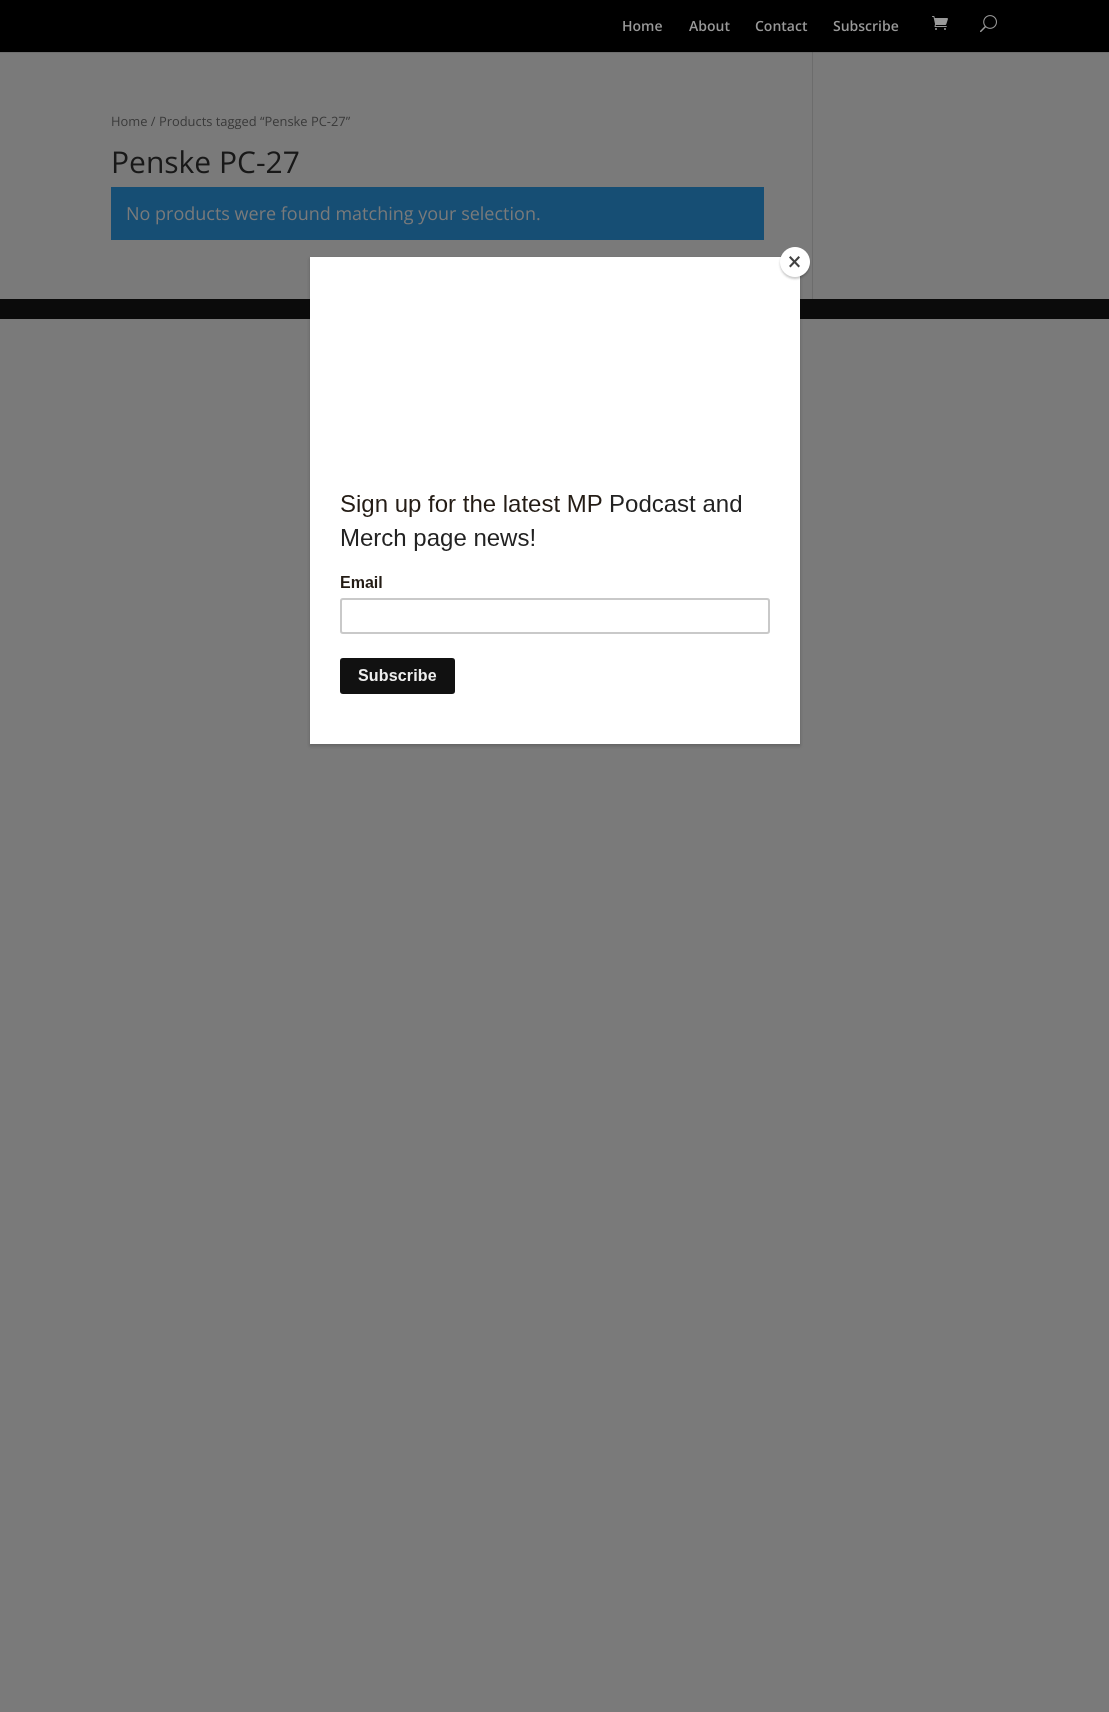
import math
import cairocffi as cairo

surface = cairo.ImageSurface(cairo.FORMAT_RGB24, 1109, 1712)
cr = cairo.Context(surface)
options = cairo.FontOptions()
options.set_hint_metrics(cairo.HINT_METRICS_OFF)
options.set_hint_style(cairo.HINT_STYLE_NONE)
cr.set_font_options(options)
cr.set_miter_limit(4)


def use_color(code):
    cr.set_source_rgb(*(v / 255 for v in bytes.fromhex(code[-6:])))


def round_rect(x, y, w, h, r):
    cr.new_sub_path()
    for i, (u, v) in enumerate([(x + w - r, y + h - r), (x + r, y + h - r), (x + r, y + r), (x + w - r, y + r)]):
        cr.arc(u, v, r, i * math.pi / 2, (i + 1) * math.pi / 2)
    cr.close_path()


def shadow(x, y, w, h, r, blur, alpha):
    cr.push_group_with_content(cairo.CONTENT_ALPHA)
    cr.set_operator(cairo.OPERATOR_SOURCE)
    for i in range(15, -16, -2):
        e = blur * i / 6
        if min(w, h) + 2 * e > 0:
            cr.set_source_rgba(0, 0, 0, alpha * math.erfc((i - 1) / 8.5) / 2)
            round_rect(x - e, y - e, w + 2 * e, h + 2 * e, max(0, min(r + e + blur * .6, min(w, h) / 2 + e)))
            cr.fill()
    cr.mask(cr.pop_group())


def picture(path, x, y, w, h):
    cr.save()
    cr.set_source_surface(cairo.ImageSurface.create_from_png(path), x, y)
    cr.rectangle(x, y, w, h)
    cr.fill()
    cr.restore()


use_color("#7a7a7a")
cr.paint()
use_color("#6e6e6e")
cr.rectangle(0, 52, 1109, 1)
cr.fill()
use_color("#000000")
cr.rectangle(0, 0, 1109, 52)
cr.fill()
cr.select_font_face("Open Sans SemiBold")
cr.set_font_size(14)
use_color("#999999")
cr.move_to(622, 31)
cr.show_text("Home")
cr.move_to(689, 31)
cr.show_text("About")
cr.move_to(755, 31)
cr.show_text("Contact")
cr.move_to(833, 31)
cr.show_text("Subscribe")
picture("img1.png", 932, 16, 16, 14)
picture("img2.png", 980, 15, 17, 18)
cr.select_font_face("Open Sans")
cr.set_font_size(12.9)
use_color("#393939")
cr.move_to(111, 126)
cr.show_text("Home / Products tagged “Penske PC-27”")
cr.set_font_size(30)
use_color("#181818")
cr.move_to(111, 173)
cr.show_text("Penske PC-27")
use_color("#164e74")
cr.rectangle(111, 187, 653, 53)
cr.fill()
cr.set_font_size(18)
use_color("#7a7a7a")
cr.move_to(126, 220)
cr.show_text("No products were found matching your selection.")
use_color("#6c6c6c")
cr.rectangle(812, 52, 1, 247)
cr.fill()
use_color("#616161")
cr.rectangle(812, 52, 1, 1)
cr.fill()
use_color("#0b0b0b")
cr.rectangle(0, 299, 1109, 20)
cr.fill()
use_color("#000000")
shadow(310, 259, 490, 487, 0, 2, 0.2)
picture("img3.png", 310, 257, 490, 487)
shadow(780, 249, 30, 30, 15, 1, 0.2)
use_color("#ffffff")
cr.arc(795, 262, 15, 0, 2 * math.pi)
cr.fill()
use_color("#414141")
cr.new_path()
cr.move_to(798.5, 256)
cr.line_to(800, 257.5)
cr.line_to(790.5, 267.5)
cr.line_to(789, 266)
cr.close_path()
cr.fill()
cr.new_path()
cr.move_to(789, 257.5)
cr.line_to(790.5, 256)
cr.line_to(800, 266)
cr.line_to(798.5, 267.5)
cr.close_path()
cr.fill()
surface.write_to_png("result.png")
